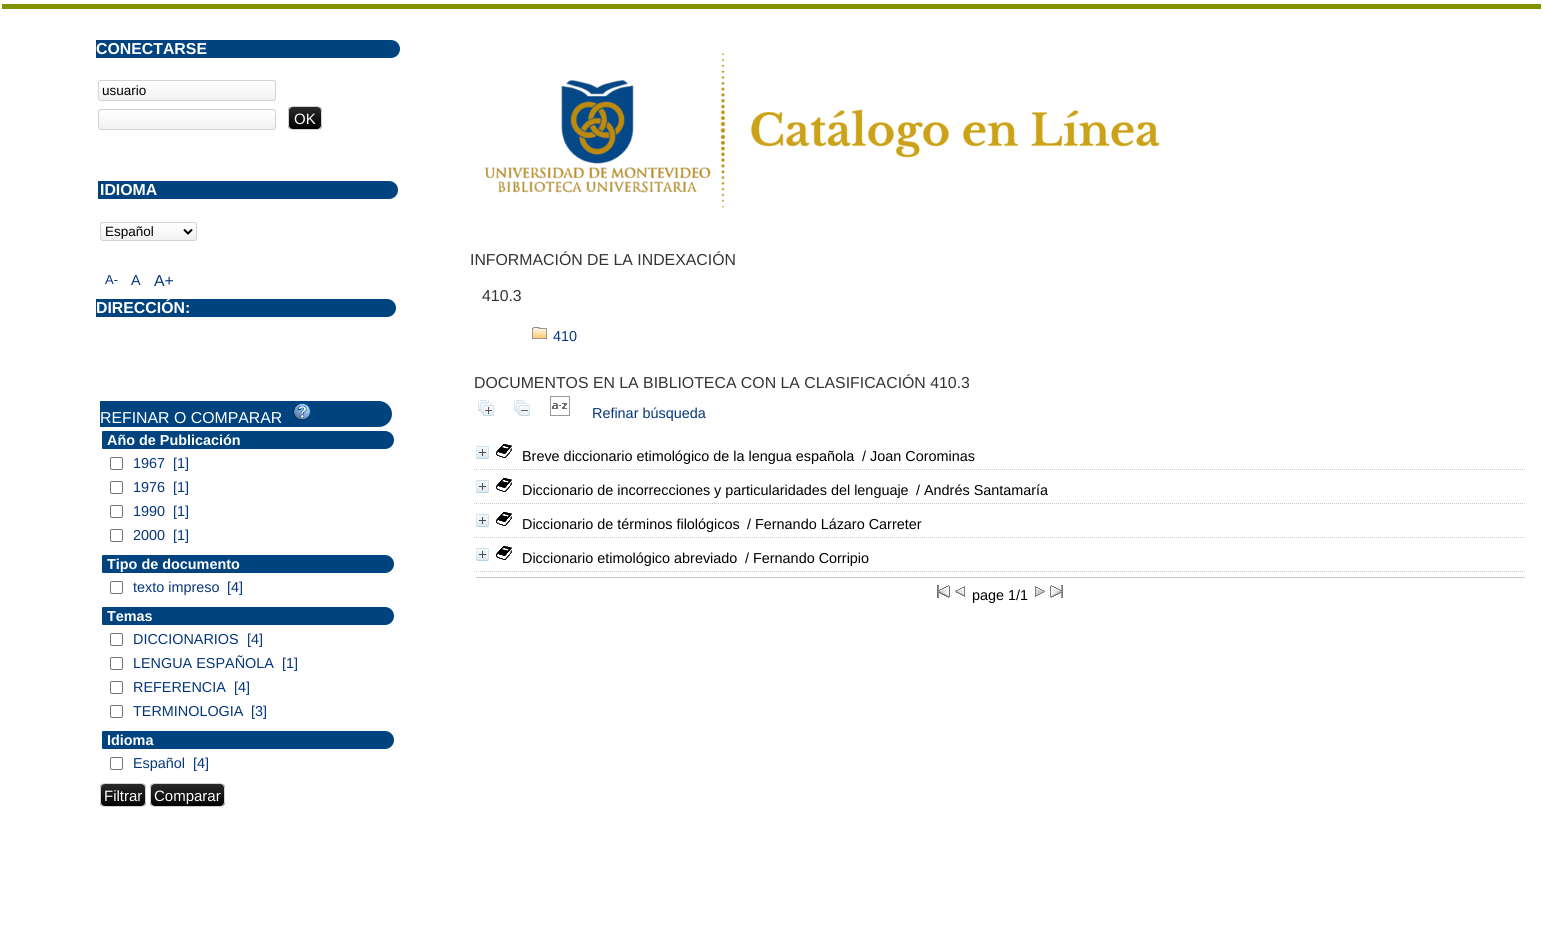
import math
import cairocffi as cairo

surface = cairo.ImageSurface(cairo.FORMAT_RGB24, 1543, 942)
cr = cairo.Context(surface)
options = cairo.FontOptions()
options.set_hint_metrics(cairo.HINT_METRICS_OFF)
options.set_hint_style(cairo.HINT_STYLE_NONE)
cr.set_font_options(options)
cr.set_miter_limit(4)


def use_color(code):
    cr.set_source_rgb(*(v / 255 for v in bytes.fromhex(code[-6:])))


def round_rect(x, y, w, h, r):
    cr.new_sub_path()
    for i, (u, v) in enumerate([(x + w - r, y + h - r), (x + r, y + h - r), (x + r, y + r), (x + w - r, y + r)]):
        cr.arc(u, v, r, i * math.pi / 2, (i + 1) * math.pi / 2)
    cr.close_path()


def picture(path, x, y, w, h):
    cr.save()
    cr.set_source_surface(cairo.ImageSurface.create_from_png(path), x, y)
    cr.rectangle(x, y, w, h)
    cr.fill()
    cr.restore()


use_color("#ffffff")
cr.paint()
use_color("#809300")
cr.rectangle(2, 4, 1539, 5)
cr.fill()
use_color("#00437e")
cr.new_path()
cr.move_to(96, 40)
cr.line_to(391, 40)
cr.curve_to(396, 40, 400, 44, 400, 49)
cr.curve_to(400, 54, 396, 58, 391, 58)
cr.line_to(96, 58)
cr.close_path()
cr.fill()
cr.select_font_face("Liberation Sans", cairo.FONT_SLANT_NORMAL, cairo.FONT_WEIGHT_BOLD)
cr.set_font_size(15.85)
use_color("#ffffff")
cr.move_to(96, 54)
cr.show_text("CONECTARSE")
cr.save()
round_rect(98, 80, 178, 21, 3)
cr.clip()
gradient = cairo.LinearGradient(187, 81, 187, 100)
gradient.add_color_stop_rgba(0.01, 1, 1, 1, 1)
gradient.add_color_stop_rgba(1, 0.945, 0.945, 0.945, 1)
cr.set_source(gradient)
cr.rectangle(98, 81, 178, 19)
cr.fill()
cr.restore()
round_rect(98.5, 80.5, 177, 20, 2.5)
use_color("#d2d2d2")
cr.set_line_width(1)
cr.stroke()
cr.select_font_face("Liberation Sans")
cr.set_font_size(13.5)
use_color("#000000")
cr.move_to(102, 95)
cr.show_text("usuario")
cr.save()
round_rect(98, 109, 178, 21, 3)
cr.clip()
gradient = cairo.LinearGradient(187, 110, 187, 129)
gradient.add_color_stop_rgba(0.01, 1, 1, 1, 1)
gradient.add_color_stop_rgba(1, 0.945, 0.945, 0.945, 1)
cr.set_source(gradient)
cr.rectangle(98, 110, 178, 19)
cr.fill()
cr.restore()
round_rect(98.5, 109.5, 177, 20, 2.5)
use_color("#d2d2d2")
cr.stroke()
cr.save()
round_rect(288, 106, 34, 24, 5)
cr.clip()
gradient = cairo.LinearGradient(305, 107, 305, 129)
gradient.add_color_stop_rgba(0, 0.165, 0.165, 0.165, 1)
gradient.add_color_stop_rgba(1, 0, 0, 0, 1)
cr.set_source(gradient)
cr.rectangle(288, 107, 34, 22)
cr.fill()
cr.restore()
round_rect(288.5, 106.5, 33, 23, 4.5)
cr.stroke()
cr.set_font_size(15)
use_color("#ffffff")
cr.move_to(294, 124)
cr.show_text("OK")
use_color("#00437e")
cr.new_path()
cr.move_to(98, 181)
cr.line_to(389, 181)
cr.curve_to(394, 181, 398, 185, 398, 190)
cr.curve_to(398, 195, 394, 199, 389, 199)
cr.line_to(98, 199)
cr.close_path()
cr.fill()
cr.select_font_face("Liberation Sans", cairo.FONT_SLANT_NORMAL, cairo.FONT_WEIGHT_BOLD)
cr.set_font_size(15.85)
use_color("#ffffff")
cr.move_to(100, 195)
cr.show_text("IDIOMA")
cr.save()
round_rect(100, 222, 97, 19, 3)
cr.clip()
gradient = cairo.LinearGradient(149, 223, 149, 240)
gradient.add_color_stop_rgba(0.01, 1, 1, 1, 1)
gradient.add_color_stop_rgba(1, 0.945, 0.945, 0.945, 1)
cr.set_source(gradient)
cr.rectangle(100, 223, 97, 17)
cr.fill()
cr.restore()
round_rect(100.5, 222.5, 96, 18, 2.5)
use_color("#d2d2d2")
cr.stroke()
cr.new_path()
cr.move_to(184, 229.5)
cr.line_to(188, 233.5)
cr.line_to(192, 229.5)
use_color("#000000")
cr.set_line_width(2)
cr.stroke()
cr.select_font_face("Liberation Sans")
cr.set_font_size(13.5)
cr.move_to(105, 236)
cr.show_text("Español")
cr.set_font_size(13)
use_color("#06367a")
cr.move_to(105, 284)
cr.show_text("A-")
cr.set_font_size(14.4)
cr.move_to(131, 285)
cr.show_text("A")
cr.set_font_size(15.85)
cr.move_to(154, 286)
cr.show_text("A+")
use_color("#00437e")
cr.new_path()
cr.move_to(96, 299)
cr.line_to(387, 299)
cr.curve_to(392, 299, 396, 303, 396, 308)
cr.curve_to(396, 313, 392, 317, 387, 317)
cr.line_to(96, 317)
cr.close_path()
cr.fill()
cr.select_font_face("Liberation Sans", cairo.FONT_SLANT_NORMAL, cairo.FONT_WEIGHT_BOLD)
use_color("#ffffff")
cr.move_to(96, 313)
cr.show_text("DIRECCIÓN:")
use_color("#00437e")
cr.new_path()
cr.move_to(100, 401)
cr.line_to(379, 401)
cr.curve_to(386, 401, 392, 407, 392, 414)
cr.curve_to(392, 421, 386, 427, 379, 427)
cr.line_to(100, 427)
cr.close_path()
cr.fill()
cr.select_font_face("Liberation Sans")
use_color("#ffffff")
cr.move_to(100, 423)
cr.show_text("REFINAR O COMPARAR")
picture("img1.png", 293, 403, 18, 18)
use_color("#00437e")
cr.new_path()
cr.move_to(103, 431)
cr.line_to(385, 431)
cr.curve_to(390, 431, 394, 435, 394, 440)
cr.curve_to(394, 445, 390, 449, 385, 449)
cr.line_to(103, 449)
cr.curve_to(102.5, 449, 102, 448.5, 102, 448)
cr.line_to(102, 432)
cr.curve_to(102, 431.5, 102.5, 431, 103, 431)
cr.close_path()
cr.fill()
cr.select_font_face("Liberation Sans", cairo.FONT_SLANT_NORMAL, cairo.FONT_WEIGHT_BOLD)
cr.set_font_size(14.4)
use_color("#ffffff")
cr.move_to(107, 445)
cr.show_text("Año de Publicación")
round_rect(110.5, 457.5, 12, 12, 1.5)
use_color("#767676")
cr.set_line_width(1)
cr.stroke()
cr.select_font_face("Liberation Sans")
use_color("#06367a")
cr.move_to(133, 468)
cr.show_text("1967")
cr.move_to(173, 468)
cr.show_text("[1]")
round_rect(110.5, 481.5, 12, 12, 1.5)
use_color("#767676")
cr.stroke()
use_color("#06367a")
cr.move_to(133, 492)
cr.show_text("1976")
cr.move_to(173, 492)
cr.show_text("[1]")
round_rect(110.5, 505.5, 12, 12, 1.5)
use_color("#767676")
cr.stroke()
use_color("#06367a")
cr.move_to(133, 516)
cr.show_text("1990")
cr.move_to(173, 516)
cr.show_text("[1]")
round_rect(110.5, 529.5, 12, 12, 1.5)
use_color("#767676")
cr.stroke()
use_color("#06367a")
cr.move_to(133, 540)
cr.show_text("2000")
cr.move_to(173, 540)
cr.show_text("[1]")
use_color("#00437e")
cr.new_path()
cr.move_to(103, 555)
cr.line_to(385, 555)
cr.curve_to(390, 555, 394, 559, 394, 564)
cr.curve_to(394, 569, 390, 573, 385, 573)
cr.line_to(103, 573)
cr.curve_to(102.5, 573, 102, 572.5, 102, 572)
cr.line_to(102, 556)
cr.curve_to(102, 555.5, 102.5, 555, 103, 555)
cr.close_path()
cr.fill()
cr.select_font_face("Liberation Sans", cairo.FONT_SLANT_NORMAL, cairo.FONT_WEIGHT_BOLD)
use_color("#ffffff")
cr.move_to(107, 569)
cr.show_text("Tipo de documento")
round_rect(110.5, 581.5, 12, 12, 1.5)
use_color("#767676")
cr.stroke()
cr.select_font_face("Liberation Sans")
use_color("#06367a")
cr.move_to(133, 592)
cr.show_text("texto impreso")
cr.move_to(227, 592)
cr.show_text("[4]")
use_color("#00437e")
cr.new_path()
cr.move_to(103, 607)
cr.line_to(385, 607)
cr.curve_to(390, 607, 394, 611, 394, 616)
cr.curve_to(394, 621, 390, 625, 385, 625)
cr.line_to(103, 625)
cr.curve_to(102.5, 625, 102, 624.5, 102, 624)
cr.line_to(102, 608)
cr.curve_to(102, 607.5, 102.5, 607, 103, 607)
cr.close_path()
cr.fill()
cr.select_font_face("Liberation Sans", cairo.FONT_SLANT_NORMAL, cairo.FONT_WEIGHT_BOLD)
use_color("#ffffff")
cr.move_to(107, 621)
cr.show_text("Temas")
round_rect(110.5, 633.5, 12, 12, 1.5)
use_color("#767676")
cr.stroke()
cr.select_font_face("Liberation Sans")
use_color("#06367a")
cr.move_to(133, 644)
cr.show_text("DICCIONARIOS")
cr.move_to(247, 644)
cr.show_text("[4]")
round_rect(110.5, 657.5, 12, 12, 1.5)
use_color("#767676")
cr.stroke()
use_color("#06367a")
cr.move_to(133, 668)
cr.show_text("LENGUA ESPAÑOLA")
cr.move_to(282, 668)
cr.show_text("[1]")
round_rect(110.5, 681.5, 12, 12, 1.5)
use_color("#767676")
cr.stroke()
use_color("#06367a")
cr.move_to(133, 692)
cr.show_text("REFERENCIA")
cr.move_to(234, 692)
cr.show_text("[4]")
round_rect(110.5, 705.5, 12, 12, 1.5)
use_color("#767676")
cr.stroke()
use_color("#06367a")
cr.move_to(133, 716)
cr.show_text("TERMINOLOGIA")
cr.move_to(251, 716)
cr.show_text("[3]")
use_color("#00437e")
cr.new_path()
cr.move_to(103, 731)
cr.line_to(385, 731)
cr.curve_to(390, 731, 394, 735, 394, 740)
cr.curve_to(394, 745, 390, 749, 385, 749)
cr.line_to(103, 749)
cr.curve_to(102.5, 749, 102, 748.5, 102, 748)
cr.line_to(102, 732)
cr.curve_to(102, 731.5, 102.5, 731, 103, 731)
cr.close_path()
cr.fill()
cr.select_font_face("Liberation Sans", cairo.FONT_SLANT_NORMAL, cairo.FONT_WEIGHT_BOLD)
use_color("#ffffff")
cr.move_to(107, 745)
cr.show_text("Idioma")
round_rect(110.5, 757.5, 12, 12, 1.5)
use_color("#767676")
cr.stroke()
cr.select_font_face("Liberation Sans")
use_color("#06367a")
cr.move_to(133, 768)
cr.show_text("Español")
cr.move_to(193, 768)
cr.show_text("[4]")
cr.save()
round_rect(100, 783, 46, 24, 5)
cr.clip()
gradient = cairo.LinearGradient(123, 784, 123, 806)
gradient.add_color_stop_rgba(0, 0.165, 0.165, 0.165, 1)
gradient.add_color_stop_rgba(1, 0, 0, 0, 1)
cr.set_source(gradient)
cr.rectangle(100, 784, 46, 22)
cr.fill()
cr.restore()
round_rect(100.5, 783.5, 45, 23, 4.5)
use_color("#d2d2d2")
cr.stroke()
cr.set_font_size(15)
use_color("#ffffff")
cr.move_to(104, 801)
cr.show_text("Filtrar")
cr.save()
round_rect(150, 783, 75, 24, 5)
cr.clip()
gradient = cairo.LinearGradient(188, 784, 188, 806)
gradient.add_color_stop_rgba(0, 0.165, 0.165, 0.165, 1)
gradient.add_color_stop_rgba(1, 0, 0, 0, 1)
cr.set_source(gradient)
cr.rectangle(150, 784, 75, 22)
cr.fill()
cr.restore()
round_rect(150.5, 783.5, 74, 23, 4.5)
use_color("#d2d2d2")
cr.stroke()
use_color("#ffffff")
cr.move_to(154, 801)
cr.show_text("Comparar")
picture("img2.png", 484, 53, 676, 155)
cr.set_font_size(15.85)
use_color("#333333")
cr.move_to(470, 265)
cr.show_text("INFORMACIÓN DE LA INDEXACIÓN")
cr.move_to(482, 301)
cr.show_text("410.3")
picture("img3.png", 532, 327, 15, 12)
cr.set_font_size(14.4)
use_color("#06367a")
cr.move_to(553, 341)
cr.show_text("410")
cr.set_font_size(15.85)
use_color("#333333")
cr.move_to(474, 388)
cr.show_text("DOCUMENTOS EN LA BIBLIOTECA CON LA CLASIFICACIÓN 410.3")
picture("img4.png", 478, 400, 16, 16)
picture("img5.png", 514, 400, 16, 16)
picture("img6.png", 550, 396, 20, 20)
cr.set_font_size(14.4)
use_color("#06367a")
cr.move_to(592, 418)
cr.show_text("Refinar búsqueda")
cr.new_path()
cr.move_to(474, 469.5)
cr.line_to(1525, 469.5)
use_color("#cccccc")
cr.set_dash([1, 1])
cr.stroke()
picture("img7.png", 476, 446, 13, 13)
picture("img8.png", 496, 444, 16, 14)
use_color("#000000")
cr.move_to(522, 461)
cr.show_text("Breve diccionario etimológico de la lengua española")
cr.move_to(862, 461)
cr.show_text("/ Joan Corominas")
cr.new_path()
cr.move_to(474, 503.5)
cr.line_to(1525, 503.5)
use_color("#cccccc")
cr.stroke()
picture("img7.png", 476, 480, 13, 13)
picture("img8.png", 496, 478, 16, 14)
use_color("#000000")
cr.move_to(522, 495)
cr.show_text("Diccionario de incorrecciones y particularidades del lenguaje")
cr.move_to(916, 495)
cr.show_text("/ Andrés Santamaría")
cr.new_path()
cr.move_to(474, 537.5)
cr.line_to(1525, 537.5)
use_color("#cccccc")
cr.stroke()
picture("img7.png", 476, 514, 13, 13)
picture("img8.png", 496, 512, 16, 14)
use_color("#000000")
cr.move_to(522, 529)
cr.show_text("Diccionario de términos filológicos")
cr.move_to(747, 529)
cr.show_text("/ Fernando Lázaro Carreter")
cr.new_path()
cr.move_to(474, 571.5)
cr.line_to(1525, 571.5)
use_color("#cccccc")
cr.stroke()
picture("img7.png", 476, 548, 13, 13)
picture("img8.png", 496, 546, 16, 14)
use_color("#000000")
cr.move_to(522, 563)
cr.show_text("Diccionario etimológico abreviado")
cr.move_to(745, 563)
cr.show_text("/ Fernando Corripio")
use_color("#cccccc")
cr.rectangle(476, 577, 1049, 1)
cr.fill()
picture("img9.png", 937, 585, 13, 13)
picture("img10.png", 955, 586, 10, 11)
use_color("#000000")
cr.move_to(972, 600)
cr.show_text("page 1/1")
picture("img11.png", 1035, 586, 10, 11)
picture("img12.png", 1050, 585, 13, 13)
surface.write_to_png("result.png")
